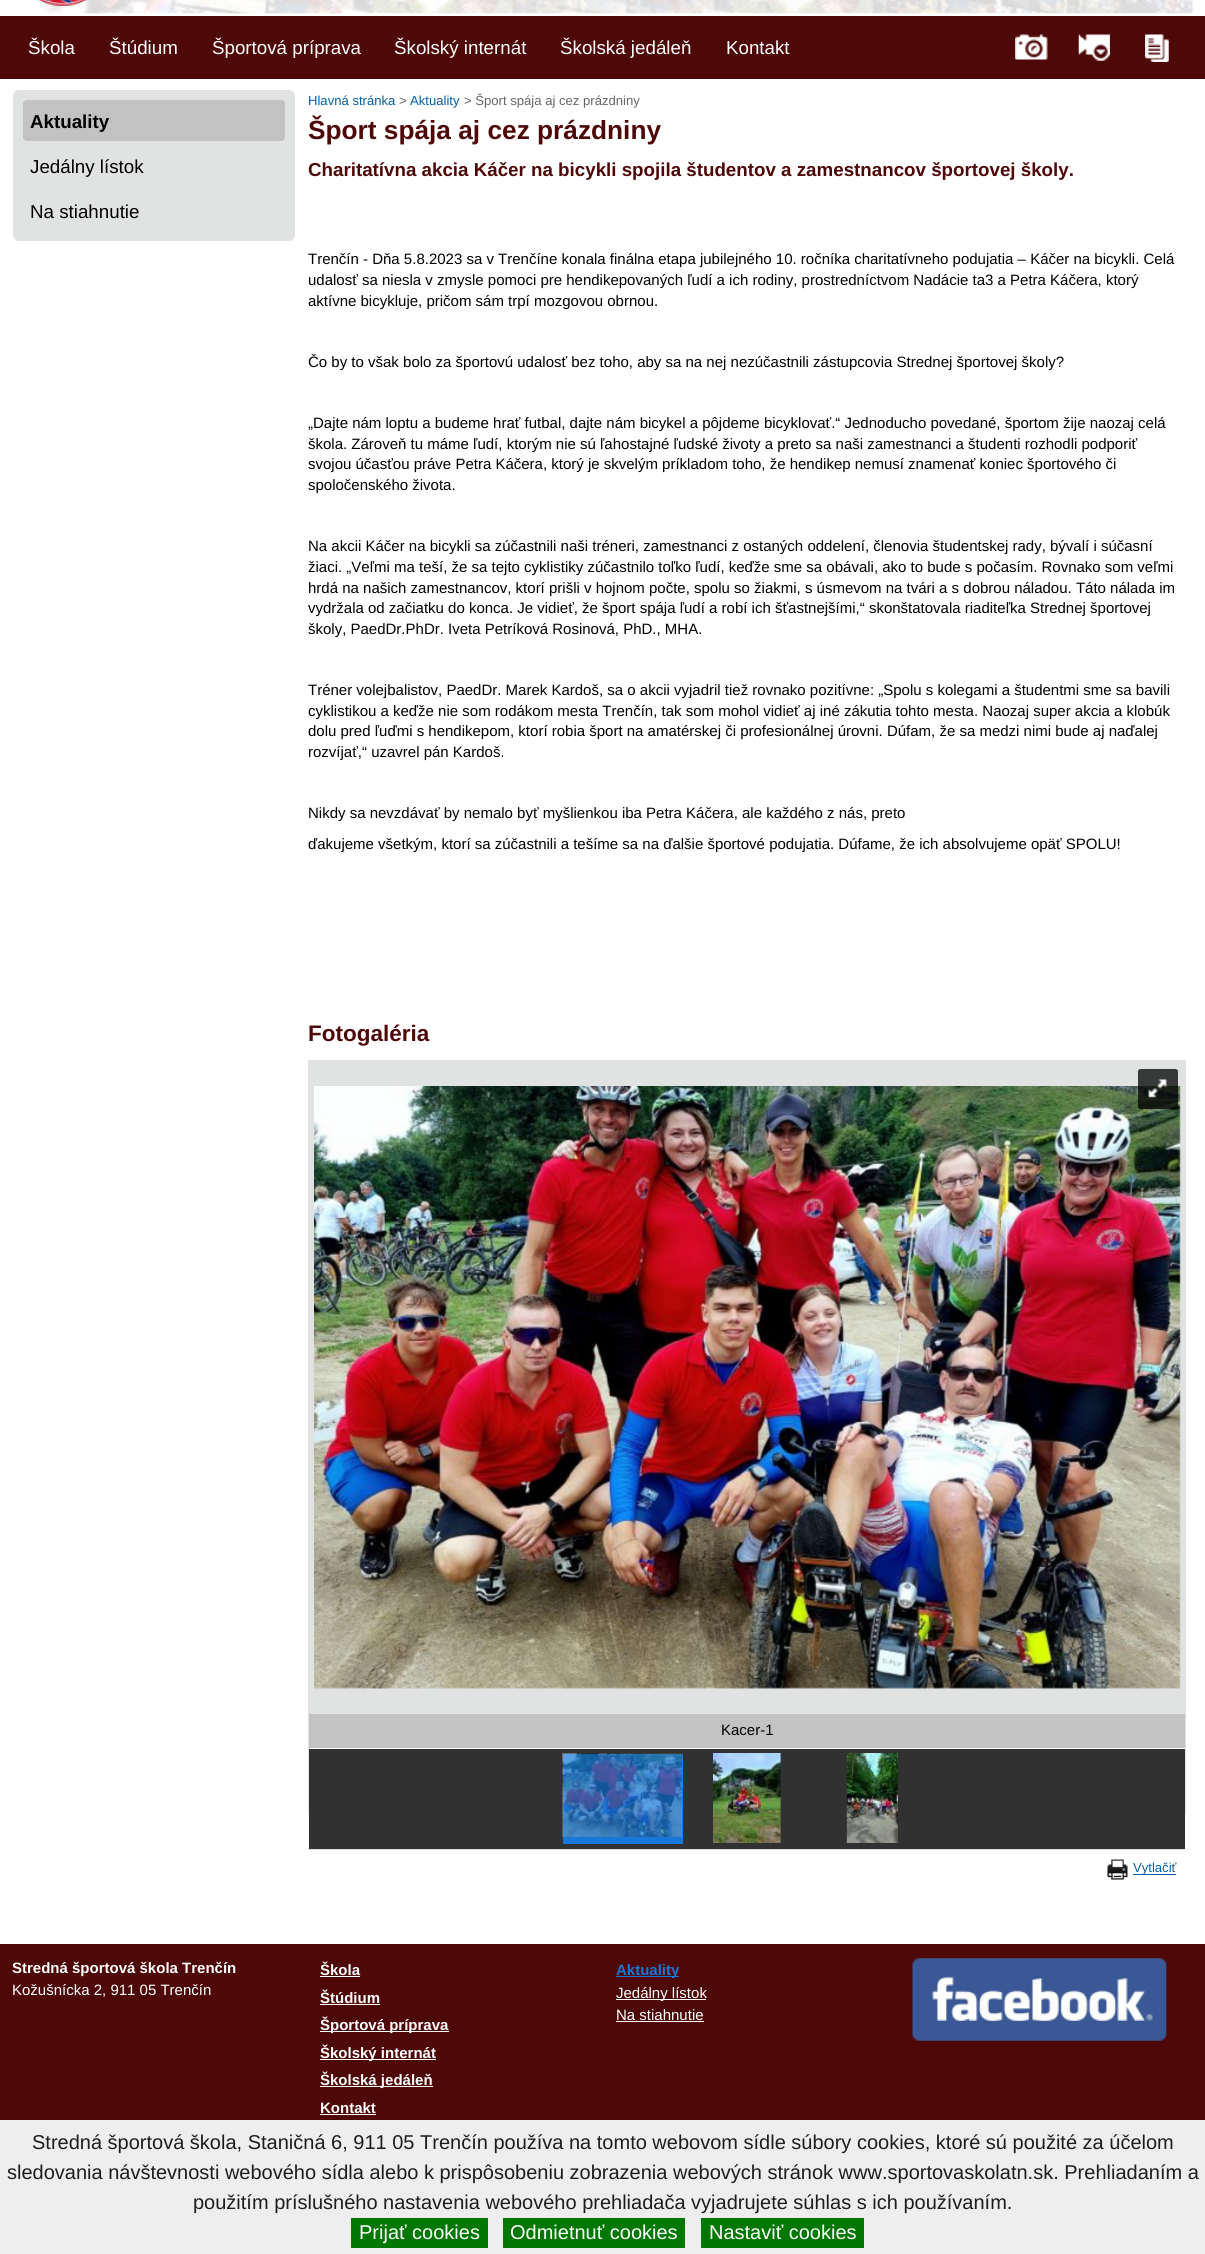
import math
import cairocffi as cairo

surface = cairo.ImageSurface(cairo.FORMAT_RGB24, 1205, 2254)
cr = cairo.Context(surface)
options = cairo.FontOptions()
options.set_hint_metrics(cairo.HINT_METRICS_OFF)
options.set_hint_style(cairo.HINT_STYLE_NONE)
cr.set_font_options(options)
cr.set_miter_limit(4)


def use_color(code):
    cr.set_source_rgb(*(v / 255 for v in bytes.fromhex(code[-6:])))


def round_rect(x, y, w, h, r):
    cr.new_sub_path()
    for i, (u, v) in enumerate([(x + w - r, y + h - r), (x + r, y + h - r), (x + r, y + r), (x + w - r, y + r)]):
        cr.arc(u, v, r, i * math.pi / 2, (i + 1) * math.pi / 2)
    cr.close_path()


def picture(path, x, y, w, h):
    cr.save()
    cr.set_source_surface(cairo.ImageSurface.create_from_png(path), x, y)
    cr.rectangle(x, y, w, h)
    cr.fill()
    cr.restore()


use_color("#ffffff")
cr.paint()
picture("img1.png", 36, 0, 1157, 14)
picture("img2.png", 38, 0, 49, 7)
use_color("#4f0808")
cr.rectangle(0, 16, 1205, 63)
cr.fill()
cr.select_font_face("Liberation Sans")
cr.set_font_size(18.75)
use_color("#ffffff")
cr.move_to(28, 54)
cr.show_text("Škola")
cr.move_to(109, 54)
cr.show_text("Štúdium")
cr.move_to(212, 54)
cr.show_text("Športová príprava")
cr.move_to(394, 54)
cr.show_text("Školský internát")
cr.move_to(560, 54)
cr.show_text("Školská jedáleň")
cr.move_to(726, 54)
cr.show_text("Kontakt")
picture("img3.png", 1015, 34, 33, 26)
picture("img4.png", 1078, 34, 32, 27)
picture("img5.png", 1145, 34, 24, 28)
use_color("#e1e2e2")
round_rect(13, 90, 282, 151, 6)
cr.fill()
use_color("#c2c2c2")
round_rect(23, 100, 262, 41, 4)
cr.fill()
cr.select_font_face("Liberation Sans", cairo.FONT_SLANT_NORMAL, cairo.FONT_WEIGHT_BOLD)
use_color("#000000")
cr.move_to(30, 128)
cr.show_text("Aktuality")
cr.select_font_face("Liberation Sans")
cr.move_to(30, 173)
cr.show_text("Jedálny lístok")
cr.move_to(30, 218)
cr.show_text("Na stiahnutie")
cr.set_font_size(13.1)
use_color("#035fa0")
cr.move_to(308, 105)
cr.show_text("Hlavná stránka")
use_color("#666666")
cr.move_to(399, 105)
cr.show_text(">")
use_color("#035fa0")
cr.move_to(410, 105)
cr.show_text("Aktuality")
use_color("#666666")
cr.move_to(464, 105)
cr.show_text("> Šport spája aj cez prázdniny")
cr.select_font_face("Liberation Sans", cairo.FONT_SLANT_NORMAL, cairo.FONT_WEIGHT_BOLD)
cr.set_font_size(26.25)
use_color("#4f0808")
cr.move_to(308, 139)
cr.show_text("Šport spája aj cez prázdniny")
cr.set_font_size(18.75)
cr.move_to(308, 176)
cr.show_text("Charitatívna akcia Káčer na bicykli spojila študentov a zamestnancov športovej školy.")
cr.select_font_face("Liberation Sans")
cr.set_font_size(15)
use_color("#000000")
cr.move_to(308, 264)
cr.show_text("Trenčín - Dňa 5.8.2023 sa v Trenčíne konala finálna etapa jubilejného 10. ročníka charitatívneho podujatia – Káčer na bicykli. Celá")
cr.move_to(308, 285)
cr.show_text("udalosť sa niesla v zmysle pomoci pre hendikepovaných ľudí a ich rodiny, prostredníctvom Nadácie ta3 a Petra Káčera, ktorý")
cr.move_to(308, 306)
cr.show_text("aktívne bicykluje, pričom sám trpí mozgovou obrnou.")
cr.move_to(308, 367)
cr.show_text("Čo by to však bolo za športovú udalosť bez toho, aby sa na nej nezúčastnili zástupcovia Strednej športovej školy?")
cr.move_to(308, 428)
cr.show_text("„Dajte nám loptu a budeme hrať futbal, dajte nám bicykel a pôjdeme bicyklovať.“ Jednoducho povedané, športom žije naozaj celá")
cr.move_to(308, 449)
cr.show_text("škola. Zároveň tu máme ľudí, ktorým nie sú ľahostajné ľudské životy a preto sa naši zamestnanci a študenti rozhodli podporiť")
cr.move_to(308, 469)
cr.show_text("svojou účasťou práve Petra Káčera, ktorý je skvelým príkladom toho, že hendikep nemusí znamenať koniec športového či")
cr.move_to(308, 490)
cr.show_text("spoločenského života.")
cr.move_to(308, 551)
cr.show_text("Na akcii Káčer na bicykli sa zúčastnili naši tréneri, zamestnanci z ostaných oddelení, členovia študentskej rady, bývalí i súčasní")
cr.move_to(308, 572)
cr.show_text("žiaci. „Veľmi ma teší, že sa tejto cyklistiky zúčastnilo toľko ľudí, keďže sme sa obávali, ako to bude s počasím. Rovnako som veľmi")
cr.move_to(308, 593)
cr.show_text("hrdá na našich zamestnancov, ktorí prišli v hojnom počte, spolu so žiakmi, s úsmevom na tvári a s dobrou náladou. Táto nálada im")
cr.move_to(308, 613)
cr.show_text("vydržala od začiatku do konca. Je vidieť, že šport spája ľudí a robí ich šťastnejšími,“ skonštatovala riaditeľka Strednej športovej")
cr.move_to(308, 634)
cr.show_text("školy, PaedDr.PhDr. Iveta Petríková Rosinová, PhD., MHA.")
cr.move_to(308, 695)
cr.show_text("Tréner volejbalistov, PaedDr. Marek Kardoš, sa o akcii vyjadril tiež rovnako pozitívne: „Spolu s kolegami a študentmi sme sa bavili")
cr.move_to(308, 716)
cr.show_text("cyklistikou a keďže nie som rodákom mesta Trenčín, tak som mohol vidieť aj iné zákutia tohto mesta. Naozaj super akcia a klobúk")
cr.move_to(308, 736)
cr.show_text("dolu pred ľuďmi s hendikepom, ktorí robia šport na amatérskej či profesionálnej úrovni. Dúfam, že sa medzi nimi bude aj naďalej")
cr.move_to(308, 757)
cr.show_text("rozvíjať,“ uzavrel pán Kardoš.")
cr.move_to(308, 818)
cr.show_text("Nikdy sa nevzdávať by nemalo byť myšlienkou iba Petra Káčera, ale každého z nás, preto")
cr.move_to(308, 849)
cr.show_text("ďakujeme všetkým, ktorí sa zúčastnili a tešíme sa na ďalšie športové podujatia. Dúfame, že ich absolvujeme opäť SPOLU!")
cr.select_font_face("Liberation Sans", cairo.FONT_SLANT_NORMAL, cairo.FONT_WEIGHT_BOLD)
cr.set_font_size(22.5)
use_color("#4f0808")
cr.move_to(308, 1041)
cr.show_text("Fotogaléria")
cr.rectangle(308.5, 1060.5, 877, 754)
use_color("#e1e2e2")
cr.set_line_width(1)
cr.stroke()
cr.rectangle(309, 1061, 876, 653)
cr.fill()
picture("img7.png", 314, 1086, 867, 603)
cr.set_source_rgba(0, 0, 0, 0.75)
round_rect(1138, 1069, 40, 40, 2.5)
cr.fill()
picture("img6.png", 1148, 1079, 19, 19)
use_color("#c2c2c2")
cr.rectangle(309, 1714, 876, 34)
cr.fill()
cr.select_font_face("Liberation Sans")
cr.set_font_size(15)
use_color("#000000")
cr.move_to(721, 1735)
cr.show_text("Kacer-1")
use_color("#313131")
cr.rectangle(309, 1749, 876, 100)
cr.fill()
use_color("#1778da")
cr.rectangle(563, 1754, 120, 90)
cr.fill()
picture("img8.png", 562, 1753, 120, 84)
picture("img9.png", 713, 1753, 68, 90)
picture("img10.png", 846, 1753, 52, 90)
use_color("#dadada")
cr.rectangle(308, 1849, 876, 1)
cr.fill()
picture("img11.png", 1107, 1859, 21, 21)
use_color("#035fa0")
cr.rectangle(1133, 1874, 43, 1)
cr.fill()
cr.set_font_size(13.1)
cr.move_to(1133, 1872)
cr.show_text("Vytlačiť")
use_color("#4f0808")
cr.rectangle(0, 1944, 1205, 176)
cr.fill()
cr.select_font_face("Liberation Sans", cairo.FONT_SLANT_NORMAL, cairo.FONT_WEIGHT_BOLD)
cr.set_font_size(15)
use_color("#ffffff")
cr.move_to(12, 1973)
cr.show_text("Stredná športová škola Trenčín")
cr.select_font_face("Liberation Sans")
cr.move_to(12, 1995)
cr.show_text("Kožušnícka 2, 911 05 Trenčín")
cr.select_font_face("Liberation Sans", cairo.FONT_SLANT_NORMAL, cairo.FONT_WEIGHT_BOLD)
cr.move_to(320, 1975)
cr.show_text("Škola")
cr.rectangle(320, 1976, 40, 1)
cr.fill()
cr.move_to(320, 2003)
cr.show_text("Štúdium")
cr.rectangle(320, 2004, 60, 1)
cr.fill()
cr.rectangle(320, 2031, 129, 1)
cr.fill()
cr.move_to(320, 2030)
cr.show_text("Športová príprava")
cr.rectangle(320, 2059, 116, 1)
cr.fill()
cr.move_to(320, 2058)
cr.show_text("Školský internát")
cr.rectangle(320, 2086, 113, 1)
cr.fill()
cr.move_to(320, 2085)
cr.show_text("Školská jedáleň")
cr.move_to(320, 2113)
cr.show_text("Kontakt")
cr.rectangle(320, 2114, 56, 1)
cr.fill()
use_color("#1778da")
cr.rectangle(616, 1976, 63, 1)
cr.fill()
cr.move_to(616, 1975)
cr.show_text("Aktuality")
use_color("#ffffff")
cr.rectangle(616, 1999, 90, 1)
cr.fill()
cr.select_font_face("Liberation Sans")
cr.move_to(616, 1998)
cr.show_text("Jedálny lístok")
cr.move_to(616, 2020)
cr.show_text("Na stiahnutie")
cr.rectangle(616, 2021, 88, 1)
cr.fill()
picture("img12.png", 912, 1958, 255, 83)
use_color("#eeeeee")
cr.rectangle(0, 2120, 1205, 134)
cr.fill()
cr.set_font_size(20)
use_color("#1d1d1b")
cr.move_to(32, 2149)
cr.show_text("Stredná športová škola, Staničná 6, 911 05 Trenčín používa na tomto webovom sídle súbory cookies, ktoré sú použité za účelom")
cr.move_to(7, 2179)
cr.show_text("sledovania návštevnosti webového sídla alebo k prispôsobeniu zobrazenia webových stránok www.sportovaskolatn.sk. Prehliadaním a")
cr.move_to(193, 2209)
cr.show_text("použitím príslušného nastavenia webového prehliadača vyjadrujete súhlas s ich používaním.")
use_color("#007700")
cr.rectangle(351, 2218, 137, 30)
cr.fill()
use_color("#ffffff")
cr.move_to(359, 2239)
cr.show_text("Prijať cookies")
use_color("#007700")
cr.rectangle(503, 2218, 182, 30)
cr.fill()
use_color("#ffffff")
cr.move_to(510, 2239)
cr.show_text("Odmietnuť cookies")
use_color("#007700")
cr.rectangle(701, 2218, 163, 30)
cr.fill()
use_color("#ffffff")
cr.move_to(709, 2239)
cr.show_text("Nastaviť cookies")
surface.write_to_png("result.png")
